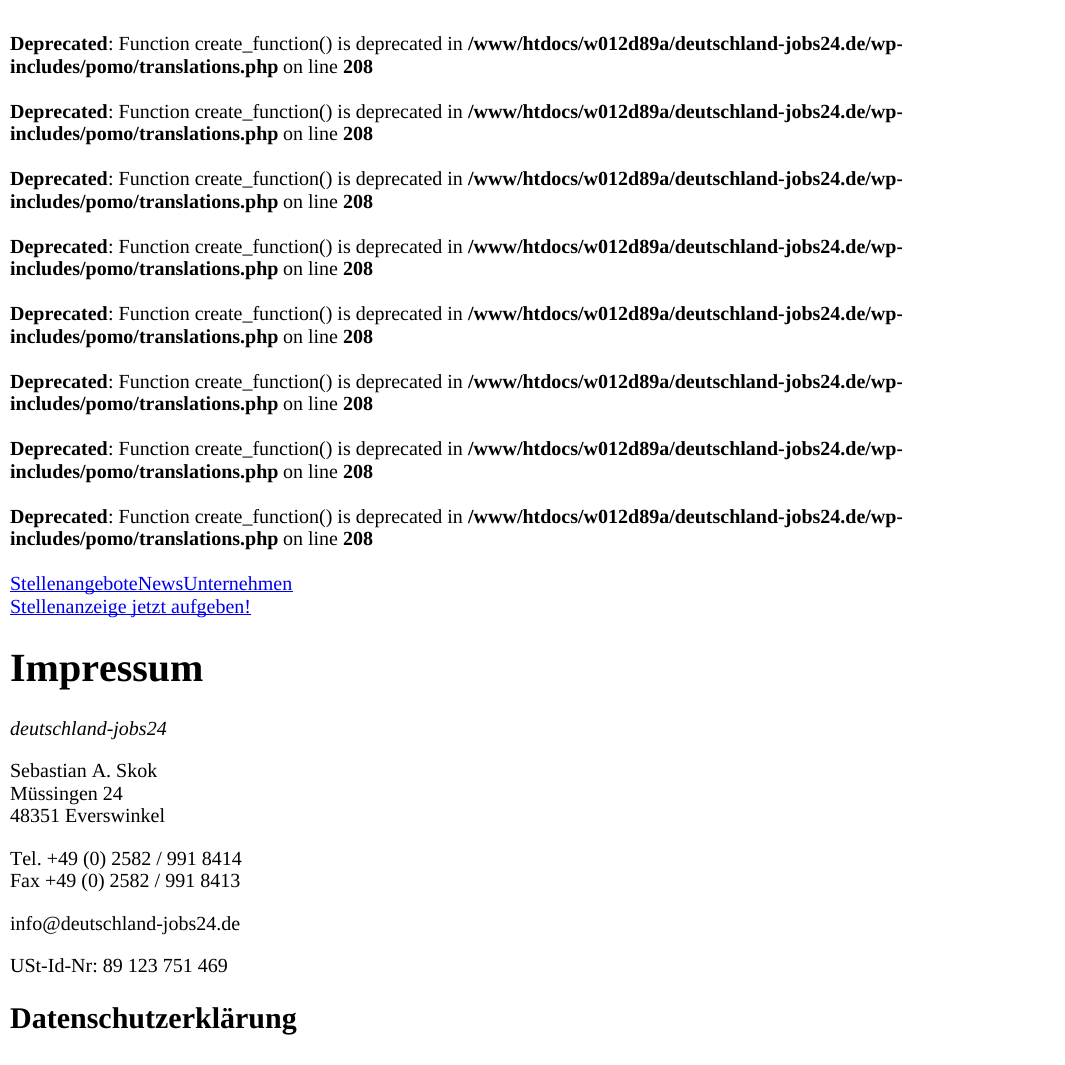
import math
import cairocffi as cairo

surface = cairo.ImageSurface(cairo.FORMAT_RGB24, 1065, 1065)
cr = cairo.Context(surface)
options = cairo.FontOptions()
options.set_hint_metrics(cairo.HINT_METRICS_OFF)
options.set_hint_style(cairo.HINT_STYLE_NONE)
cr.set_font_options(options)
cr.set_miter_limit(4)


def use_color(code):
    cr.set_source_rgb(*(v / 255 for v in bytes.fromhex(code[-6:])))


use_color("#ffffff")
cr.paint()
cr.select_font_face("Liberation Serif", cairo.FONT_SLANT_NORMAL, cairo.FONT_WEIGHT_BOLD)
cr.set_font_size(20)
use_color("#000000")
cr.move_to(10, 50)
cr.show_text("Deprecated")
cr.select_font_face("Liberation Serif")
cr.move_to(108, 50)
cr.show_text(": Function create_function() is deprecated in")
cr.select_font_face("Liberation Serif", cairo.FONT_SLANT_NORMAL, cairo.FONT_WEIGHT_BOLD)
cr.move_to(468, 50)
cr.show_text("/www/htdocs/w012d89a/deutschland-jobs24.de/wp-")
cr.move_to(10, 73)
cr.show_text("includes/pomo/translations.php")
cr.select_font_face("Liberation Serif")
cr.move_to(283, 73)
cr.show_text("on line")
cr.select_font_face("Liberation Serif", cairo.FONT_SLANT_NORMAL, cairo.FONT_WEIGHT_BOLD)
cr.move_to(343, 73)
cr.show_text("208")
cr.move_to(10, 118)
cr.show_text("Deprecated")
cr.select_font_face("Liberation Serif")
cr.move_to(108, 118)
cr.show_text(": Function create_function() is deprecated in")
cr.select_font_face("Liberation Serif", cairo.FONT_SLANT_NORMAL, cairo.FONT_WEIGHT_BOLD)
cr.move_to(468, 118)
cr.show_text("/www/htdocs/w012d89a/deutschland-jobs24.de/wp-")
cr.move_to(10, 140)
cr.show_text("includes/pomo/translations.php")
cr.select_font_face("Liberation Serif")
cr.move_to(283, 140)
cr.show_text("on line")
cr.select_font_face("Liberation Serif", cairo.FONT_SLANT_NORMAL, cairo.FONT_WEIGHT_BOLD)
cr.move_to(343, 140)
cr.show_text("208")
cr.move_to(10, 185)
cr.show_text("Deprecated")
cr.select_font_face("Liberation Serif")
cr.move_to(108, 185)
cr.show_text(": Function create_function() is deprecated in")
cr.select_font_face("Liberation Serif", cairo.FONT_SLANT_NORMAL, cairo.FONT_WEIGHT_BOLD)
cr.move_to(468, 185)
cr.show_text("/www/htdocs/w012d89a/deutschland-jobs24.de/wp-")
cr.move_to(10, 208)
cr.show_text("includes/pomo/translations.php")
cr.select_font_face("Liberation Serif")
cr.move_to(283, 208)
cr.show_text("on line")
cr.select_font_face("Liberation Serif", cairo.FONT_SLANT_NORMAL, cairo.FONT_WEIGHT_BOLD)
cr.move_to(343, 208)
cr.show_text("208")
cr.move_to(10, 253)
cr.show_text("Deprecated")
cr.select_font_face("Liberation Serif")
cr.move_to(108, 253)
cr.show_text(": Function create_function() is deprecated in")
cr.select_font_face("Liberation Serif", cairo.FONT_SLANT_NORMAL, cairo.FONT_WEIGHT_BOLD)
cr.move_to(468, 253)
cr.show_text("/www/htdocs/w012d89a/deutschland-jobs24.de/wp-")
cr.move_to(10, 275)
cr.show_text("includes/pomo/translations.php")
cr.select_font_face("Liberation Serif")
cr.move_to(283, 275)
cr.show_text("on line")
cr.select_font_face("Liberation Serif", cairo.FONT_SLANT_NORMAL, cairo.FONT_WEIGHT_BOLD)
cr.move_to(343, 275)
cr.show_text("208")
cr.move_to(10, 320)
cr.show_text("Deprecated")
cr.select_font_face("Liberation Serif")
cr.move_to(108, 320)
cr.show_text(": Function create_function() is deprecated in")
cr.select_font_face("Liberation Serif", cairo.FONT_SLANT_NORMAL, cairo.FONT_WEIGHT_BOLD)
cr.move_to(468, 320)
cr.show_text("/www/htdocs/w012d89a/deutschland-jobs24.de/wp-")
cr.move_to(10, 343)
cr.show_text("includes/pomo/translations.php")
cr.select_font_face("Liberation Serif")
cr.move_to(283, 343)
cr.show_text("on line")
cr.select_font_face("Liberation Serif", cairo.FONT_SLANT_NORMAL, cairo.FONT_WEIGHT_BOLD)
cr.move_to(343, 343)
cr.show_text("208")
cr.move_to(10, 388)
cr.show_text("Deprecated")
cr.select_font_face("Liberation Serif")
cr.move_to(108, 388)
cr.show_text(": Function create_function() is deprecated in")
cr.select_font_face("Liberation Serif", cairo.FONT_SLANT_NORMAL, cairo.FONT_WEIGHT_BOLD)
cr.move_to(468, 388)
cr.show_text("/www/htdocs/w012d89a/deutschland-jobs24.de/wp-")
cr.move_to(10, 410)
cr.show_text("includes/pomo/translations.php")
cr.select_font_face("Liberation Serif")
cr.move_to(283, 410)
cr.show_text("on line")
cr.select_font_face("Liberation Serif", cairo.FONT_SLANT_NORMAL, cairo.FONT_WEIGHT_BOLD)
cr.move_to(343, 410)
cr.show_text("208")
cr.move_to(10, 455)
cr.show_text("Deprecated")
cr.select_font_face("Liberation Serif")
cr.move_to(108, 455)
cr.show_text(": Function create_function() is deprecated in")
cr.select_font_face("Liberation Serif", cairo.FONT_SLANT_NORMAL, cairo.FONT_WEIGHT_BOLD)
cr.move_to(468, 455)
cr.show_text("/www/htdocs/w012d89a/deutschland-jobs24.de/wp-")
cr.move_to(10, 478)
cr.show_text("includes/pomo/translations.php")
cr.select_font_face("Liberation Serif")
cr.move_to(283, 478)
cr.show_text("on line")
cr.select_font_face("Liberation Serif", cairo.FONT_SLANT_NORMAL, cairo.FONT_WEIGHT_BOLD)
cr.move_to(343, 478)
cr.show_text("208")
cr.move_to(10, 523)
cr.show_text("Deprecated")
cr.select_font_face("Liberation Serif")
cr.move_to(108, 523)
cr.show_text(": Function create_function() is deprecated in")
cr.select_font_face("Liberation Serif", cairo.FONT_SLANT_NORMAL, cairo.FONT_WEIGHT_BOLD)
cr.move_to(468, 523)
cr.show_text("/www/htdocs/w012d89a/deutschland-jobs24.de/wp-")
cr.move_to(10, 545)
cr.show_text("includes/pomo/translations.php")
cr.select_font_face("Liberation Serif")
cr.move_to(283, 545)
cr.show_text("on line")
cr.select_font_face("Liberation Serif", cairo.FONT_SLANT_NORMAL, cairo.FONT_WEIGHT_BOLD)
cr.move_to(343, 545)
cr.show_text("208")
use_color("#0000ee")
cr.rectangle(10, 591, 283, 1)
cr.fill()
cr.select_font_face("Liberation Serif")
cr.move_to(10, 590)
cr.show_text("StellenangeboteNewsUnternehmen")
cr.rectangle(10, 614, 241, 1)
cr.fill()
cr.move_to(10, 613)
cr.show_text("Stellenanzeige jetzt aufgeben!")
cr.select_font_face("Liberation Serif", cairo.FONT_SLANT_NORMAL, cairo.FONT_WEIGHT_BOLD)
cr.set_font_size(40)
use_color("#000000")
cr.move_to(10, 681)
cr.show_text("Impressum")
cr.select_font_face("Liberation Serif", cairo.FONT_SLANT_ITALIC)
cr.set_font_size(20)
cr.move_to(10, 735)
cr.show_text("deutschland-jobs24")
cr.select_font_face("Liberation Serif")
cr.move_to(10, 777)
cr.show_text("Sebastian A. Skok")
cr.move_to(10, 800)
cr.show_text("Müssingen 24")
cr.move_to(10, 822)
cr.show_text("48351 Everswinkel")
cr.move_to(10, 865)
cr.show_text("Tel. +49 (0) 2582 / 991 8414")
cr.move_to(10, 887)
cr.show_text("Fax +49 (0) 2582 / 991 8413")
cr.move_to(10, 930)
cr.show_text("info@deutschland-jobs24.de")
cr.move_to(10, 972)
cr.show_text("USt-Id-Nr: 89 123 751 469")
cr.select_font_face("Liberation Serif", cairo.FONT_SLANT_NORMAL, cairo.FONT_WEIGHT_BOLD)
cr.set_font_size(30)
cr.move_to(10, 1028)
cr.show_text("Datenschutzerklärung")
surface.write_to_png("result.png")
